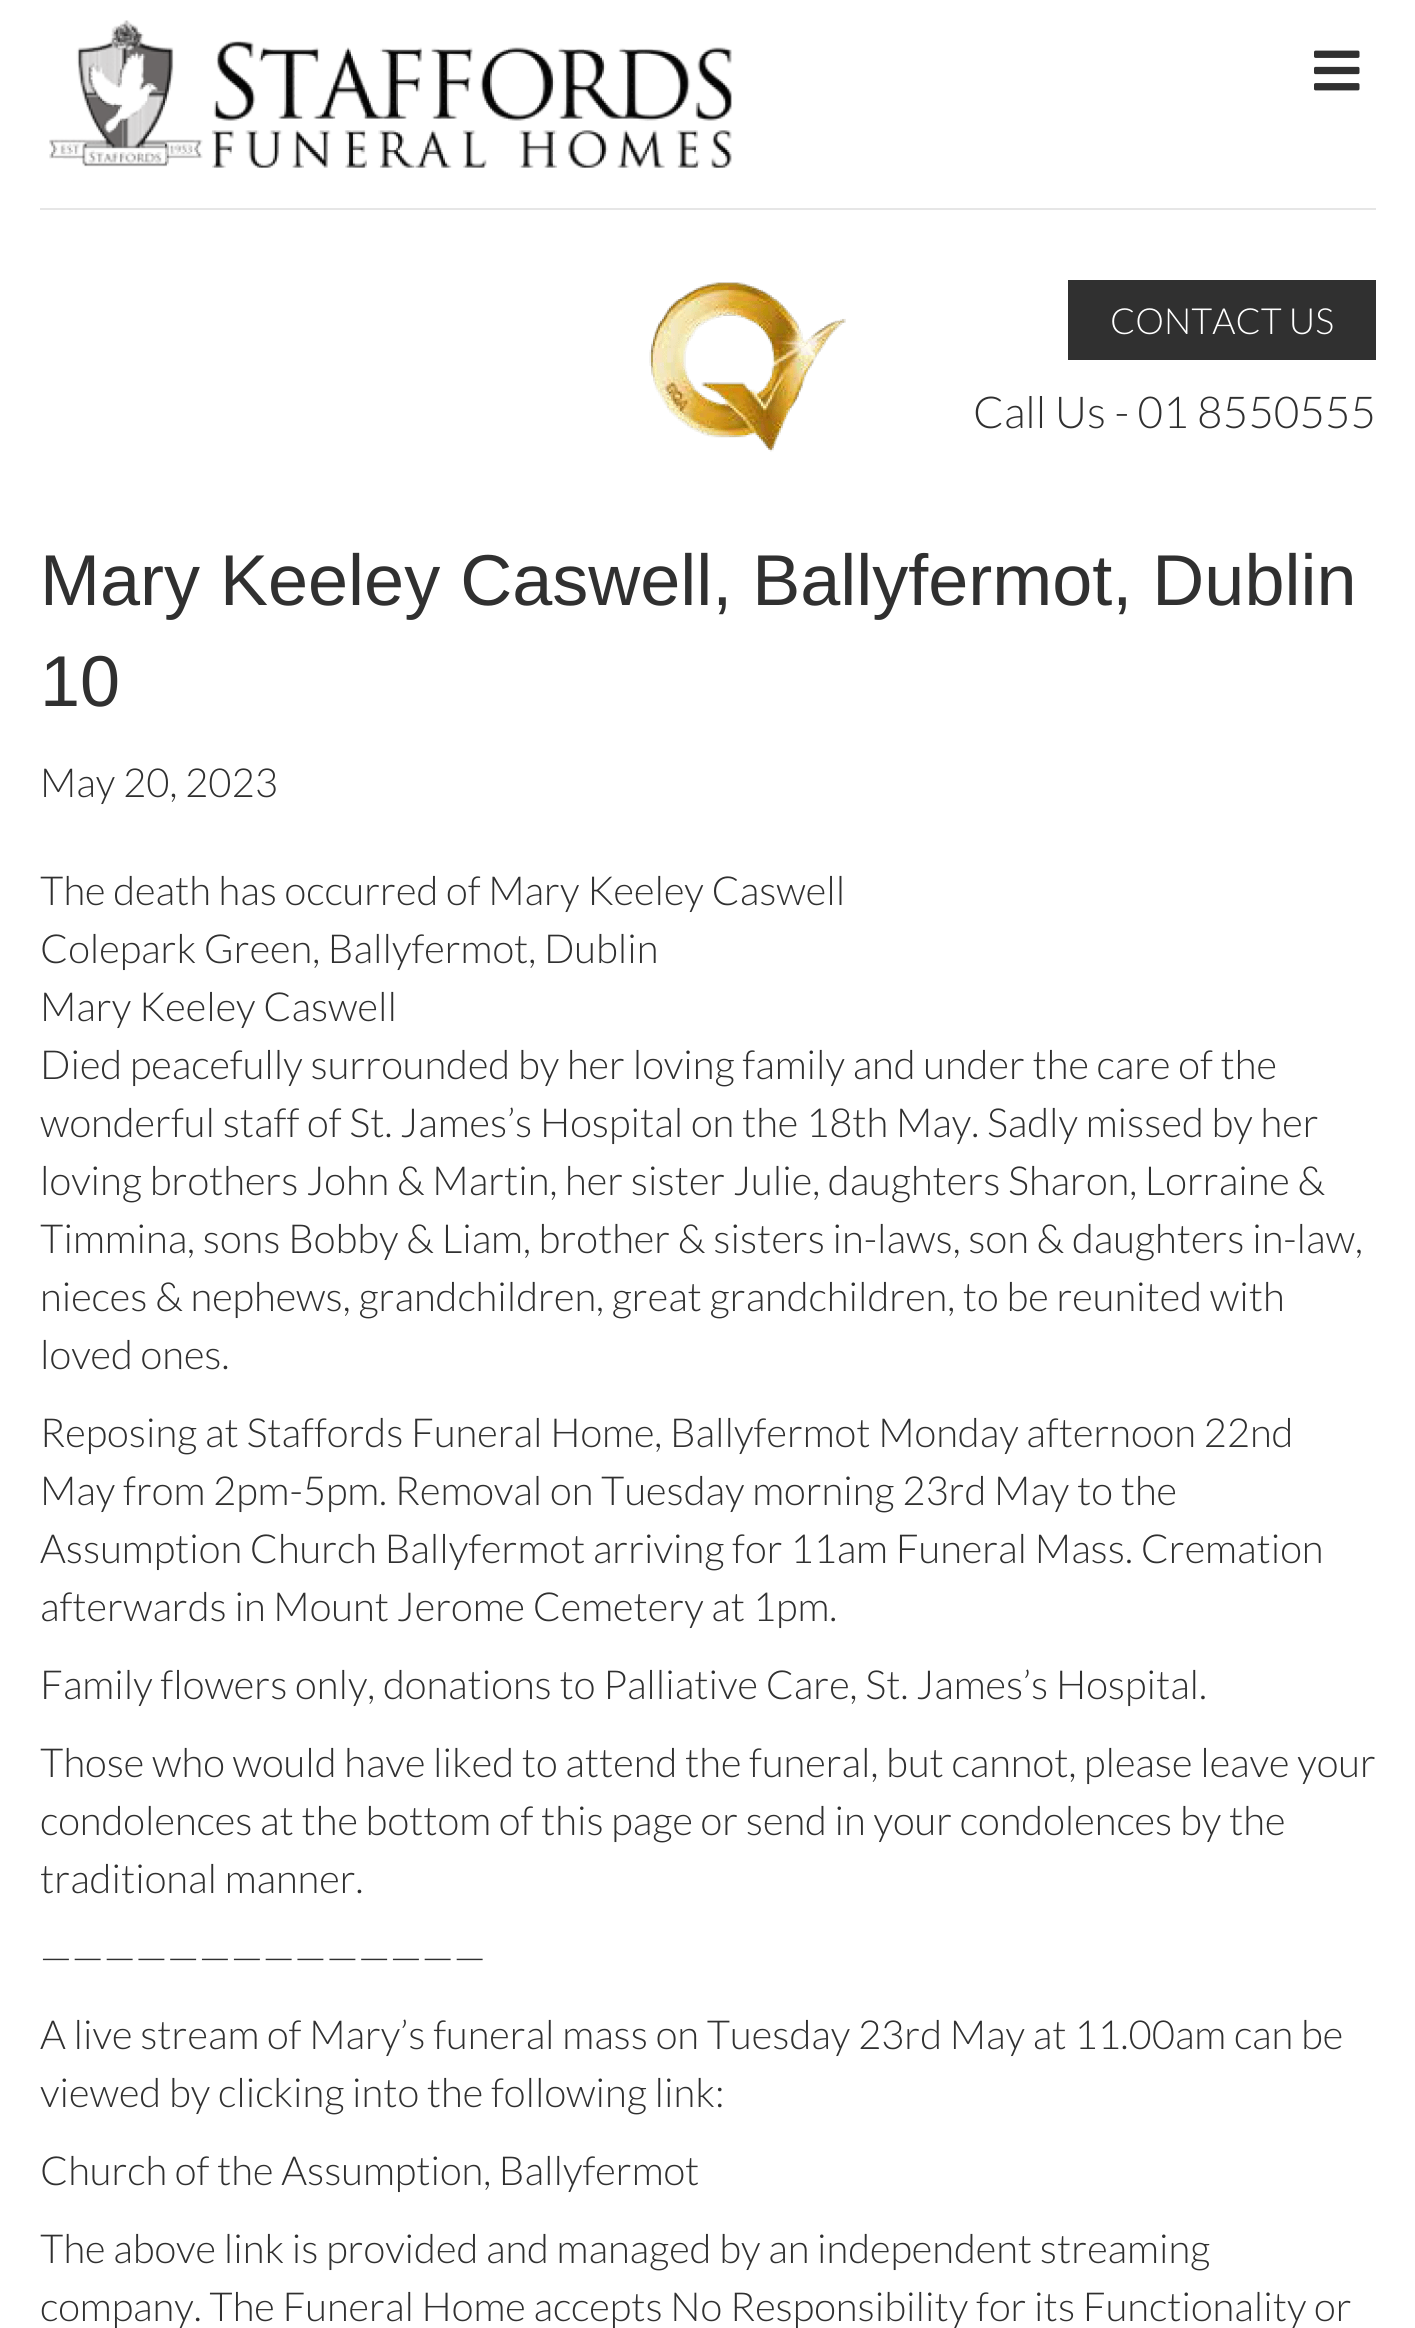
import math
import cairocffi as cairo

surface = cairo.ImageSurface(cairo.FORMAT_RGB24, 1415, 2328)
cr = cairo.Context(surface)
options = cairo.FontOptions()
options.set_hint_metrics(cairo.HINT_METRICS_OFF)
options.set_hint_style(cairo.HINT_STYLE_NONE)
cr.set_font_options(options)
cr.set_miter_limit(4)


def use_color(code):
    cr.set_source_rgb(*(v / 255 for v in bytes.fromhex(code[-6:])))


def picture(path, x, y, w, h):
    cr.save()
    cr.set_source_surface(cairo.ImageSurface.create_from_png(path), x, y)
    cr.rectangle(x, y, w, h)
    cr.fill()
    cr.restore()


use_color("#ffffff")
cr.paint()
picture("img1.png", 1314, 50, 46, 41)
picture("img2.png", 49, 20, 683, 148)
use_color("#e6e6e6")
cr.rectangle(40, 208, 1336, 2)
cr.fill()
picture("img3.png", 649, 282, 197, 170)
use_color("#303030")
cr.rectangle(1068, 280, 308, 80)
cr.fill()
cr.select_font_face("Lato Light")
cr.set_font_size(36)
use_color("#ffffff")
cr.move_to(1110, 334)
cr.show_text("CONTACT US")
cr.set_font_size(44)
use_color("#303030")
cr.move_to(973, 428)
cr.show_text("Call Us - 01 8550555")
cr.select_font_face("Liberation Sans")
cr.set_font_size(72)
cr.move_to(40, 605)
cr.show_text("Mary Keeley Caswell, Ballyfermot, Dublin")
cr.move_to(40, 706)
cr.show_text("10")
cr.select_font_face("Lato Light")
cr.set_font_size(40)
cr.move_to(40, 797)
cr.show_text("May 20, 2023")
cr.move_to(40, 905)
cr.show_text("The death has occurred of Mary Keeley Caswell")
cr.move_to(40, 963)
cr.show_text("Colepark Green, Ballyfermot, Dublin")
cr.move_to(40, 1021)
cr.show_text("Mary Keeley Caswell")
cr.move_to(40, 1079)
cr.show_text("Died peacefully surrounded by her loving family and under the care of the")
cr.move_to(40, 1137)
cr.show_text("wonderful staff of St. James’s Hospital on the 18th May. Sadly missed by her")
cr.move_to(40, 1195)
cr.show_text("loving brothers John & Martin, her sister Julie, daughters Sharon, Lorraine &")
cr.move_to(40, 1253)
cr.show_text("Timmina, sons Bobby & Liam, brother & sisters in-laws, son & daughters in-law,")
cr.move_to(40, 1311)
cr.show_text("nieces & nephews, grandchildren, great grandchildren, to be reunited with")
cr.move_to(40, 1369)
cr.show_text("loved ones.")
cr.move_to(40, 1447)
cr.show_text("Reposing at Staffords Funeral Home, Ballyfermot Monday afternoon 22nd")
cr.move_to(40, 1505)
cr.show_text("May from 2pm-5pm. Removal on Tuesday morning 23rd May to the")
cr.move_to(40, 1563)
cr.show_text("Assumption Church Ballyfermot arriving for 11am Funeral Mass. Cremation")
cr.move_to(40, 1621)
cr.show_text("afterwards in Mount Jerome Cemetery at 1pm.")
cr.move_to(40, 1699)
cr.show_text("Family flowers only, donations to Palliative Care, St. James’s Hospital.")
cr.move_to(40, 1777)
cr.show_text("Those who would have liked to attend the funeral, but cannot, please leave your")
cr.move_to(40, 1835)
cr.show_text("condolences at the bottom of this page or send in your condolences by the")
cr.move_to(40, 1893)
cr.show_text("traditional manner.")
cr.move_to(40, 1971)
cr.show_text("——————————————")
cr.move_to(40, 2049)
cr.show_text("A live stream of Mary’s funeral mass on Tuesday 23rd May at 11.00am can be")
cr.move_to(40, 2107)
cr.show_text("viewed by clicking into the following link:")
cr.move_to(40, 2185)
cr.show_text("Church of the Assumption, Ballyfermot")
cr.move_to(40, 2263)
cr.show_text("The above link is provided and managed by an independent streaming")
cr.move_to(40, 2321)
cr.show_text("company. The Funeral Home accepts No Responsibility for its Functionality or")
surface.write_to_png("result.png")
